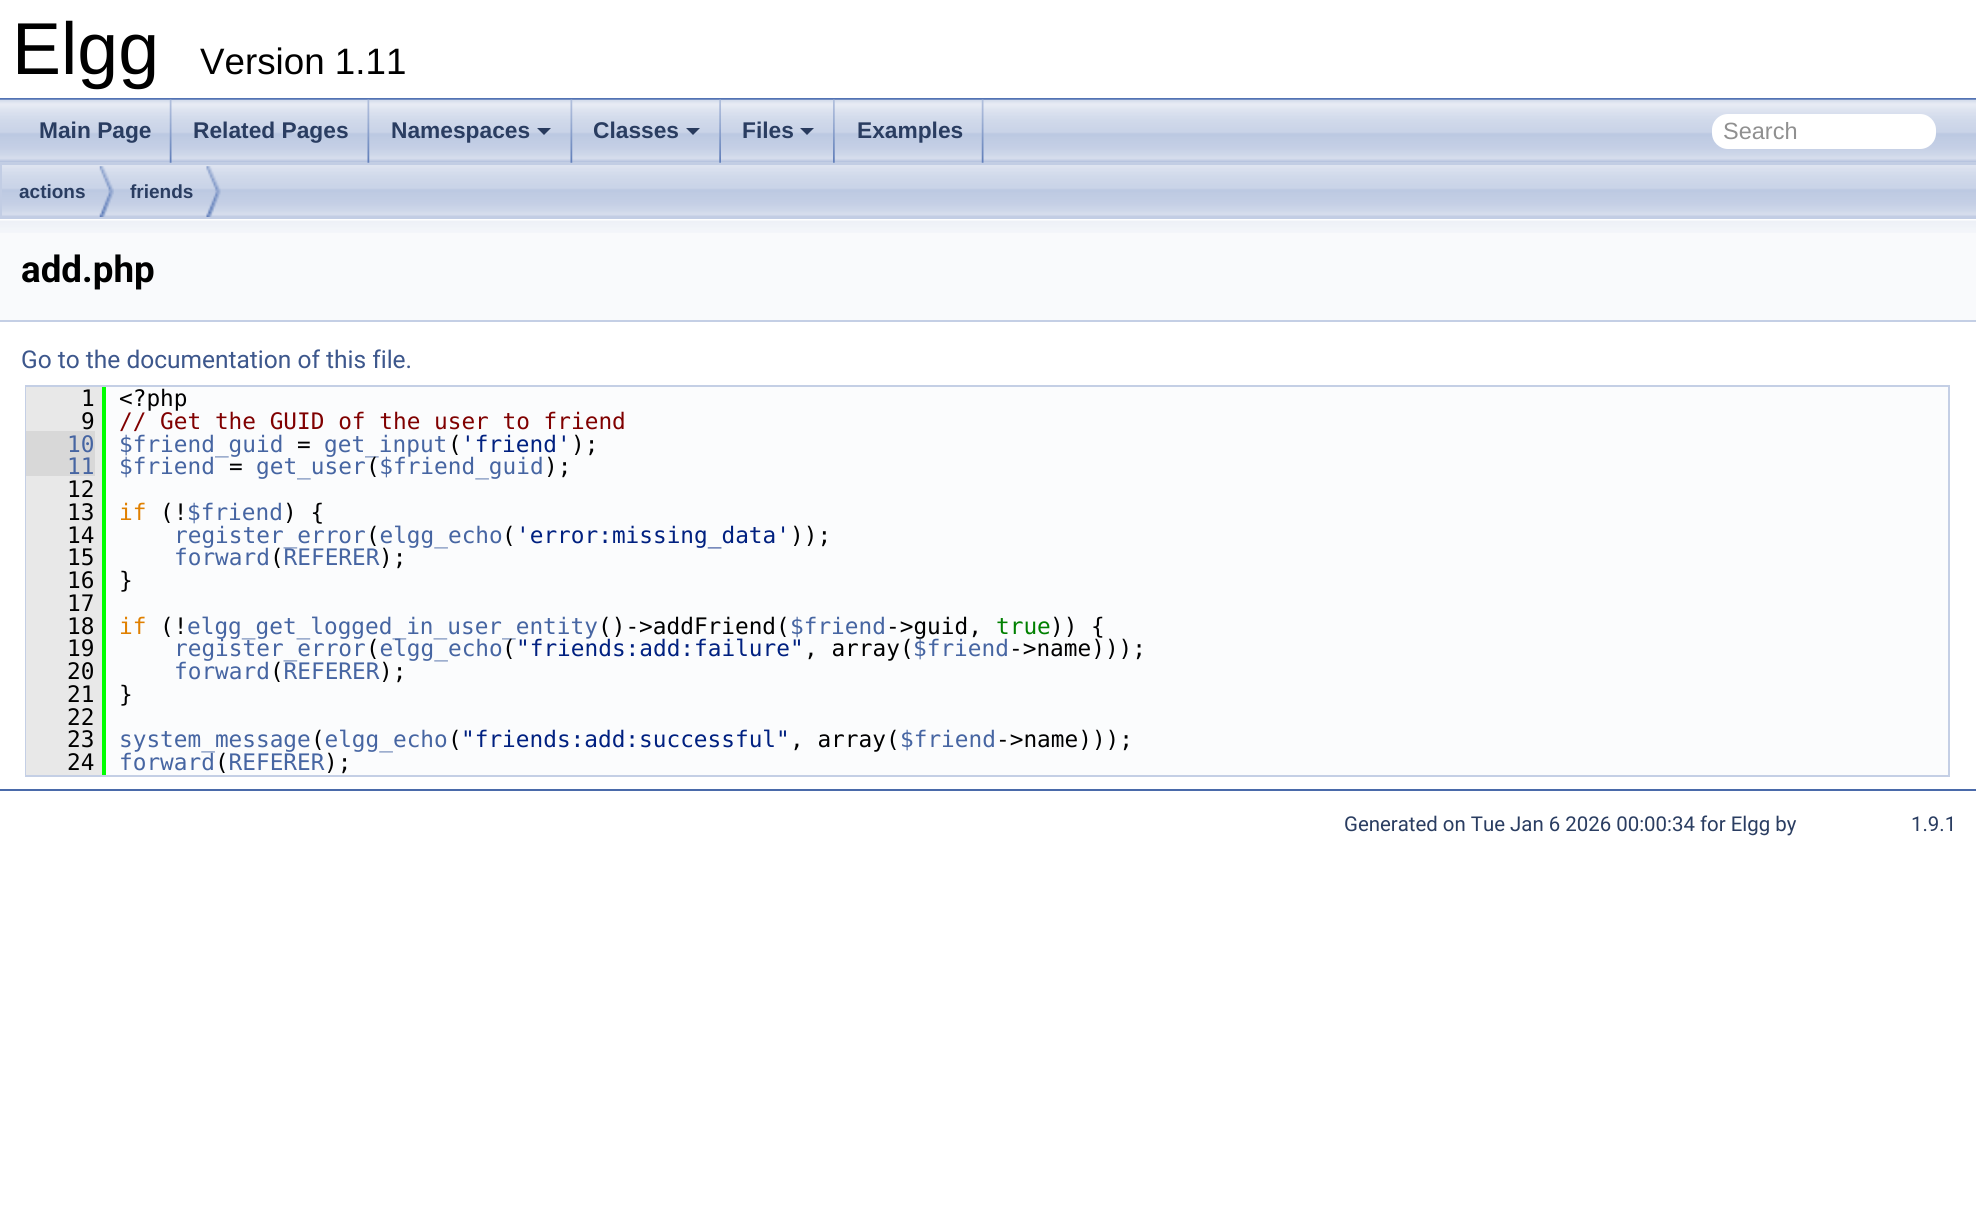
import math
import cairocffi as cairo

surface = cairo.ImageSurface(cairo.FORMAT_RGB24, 1976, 1225)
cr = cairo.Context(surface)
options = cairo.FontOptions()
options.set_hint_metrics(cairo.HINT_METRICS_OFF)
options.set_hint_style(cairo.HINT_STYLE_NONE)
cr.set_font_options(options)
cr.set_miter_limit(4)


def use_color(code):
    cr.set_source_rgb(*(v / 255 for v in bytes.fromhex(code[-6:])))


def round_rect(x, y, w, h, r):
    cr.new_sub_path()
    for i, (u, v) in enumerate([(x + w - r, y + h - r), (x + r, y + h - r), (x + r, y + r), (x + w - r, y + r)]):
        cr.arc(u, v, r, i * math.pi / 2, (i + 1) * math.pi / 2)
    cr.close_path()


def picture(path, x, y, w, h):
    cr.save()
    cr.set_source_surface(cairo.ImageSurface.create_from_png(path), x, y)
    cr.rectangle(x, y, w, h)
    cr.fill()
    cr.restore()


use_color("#ffffff")
cr.paint()
use_color("#5373b4")
cr.rectangle(0, 98, 1976, 2)
cr.fill()
cr.select_font_face("Liberation Sans")
cr.set_font_size(73.5)
use_color("#000000")
cr.move_to(12, 74)
cr.show_text("Elgg")
cr.set_font_size(36.75)
cr.move_to(200, 74)
cr.show_text("Version 1.11")
picture("img6.png", 0, 162, 1976, 55)
picture("img1.png", 0, 99, 1976, 64)
picture("img2.png", 169, 99, 3, 64)
cr.select_font_face("Liberation Sans", cairo.FONT_SLANT_NORMAL, cairo.FONT_WEIGHT_BOLD)
cr.set_font_size(22.75)
use_color("#2a3d61")
cr.move_to(39, 138)
cr.show_text("Main Page")
picture("img3.png", 367, 99, 3, 64)
cr.move_to(193, 138)
cr.show_text("Related Pages")
picture("img3.png", 570, 99, 3, 64)
cr.move_to(391, 138)
cr.show_text("Namespaces")
use_color("#283a5d")
cr.new_path()
cr.move_to(537, 128)
cr.line_to(551, 128)
cr.line_to(544, 135)
cr.close_path()
cr.fill()
picture("img4.png", 719, 99, 2, 64)
use_color("#2a3d61")
cr.move_to(593, 138)
cr.show_text("Classes")
use_color("#283a5d")
cr.new_path()
cr.move_to(686, 128)
cr.line_to(700, 128)
cr.line_to(693, 135)
cr.close_path()
cr.fill()
picture("img5.png", 833, 99, 2, 64)
use_color("#2a3d61")
cr.move_to(742, 138)
cr.show_text("Files")
use_color("#283a5d")
cr.new_path()
cr.move_to(800, 128)
cr.line_to(814, 128)
cr.line_to(807, 135)
cr.close_path()
cr.fill()
picture("img2.png", 981, 99, 3, 64)
use_color("#2a3d61")
cr.move_to(857, 138)
cr.show_text("Examples")
use_color("#ffffff")
round_rect(1712, 114, 224, 35, 16)
cr.fill()
cr.select_font_face("Liberation Sans")
cr.set_font_size(23.5)
use_color("#909090")
cr.move_to(1723, 139)
cr.show_text("Search")
cr.rectangle(1, 164, 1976, 54)
use_color("#c2cde4")
cr.stroke()
picture("img7.png", 99, 166, 15, 51)
cr.select_font_face("Liberation Sans", cairo.FONT_SLANT_NORMAL, cairo.FONT_WEIGHT_BOLD)
cr.set_font_size(19)
use_color("#2a3d61")
cr.move_to(19, 198)
cr.show_text("actions")
picture("img8.png", 206, 166, 15, 51)
cr.move_to(130, 198)
cr.show_text("friends")
use_color("#f9fafc")
cr.rectangle(0, 233, 1976, 87)
cr.fill()
picture("img9.png", 0, 219, 1976, 14)
use_color("#c4cfe5")
cr.rectangle(0, 320, 1976, 2)
cr.fill()
cr.select_font_face("Roboto", cairo.FONT_SLANT_NORMAL, cairo.FONT_WEIGHT_BOLD)
cr.set_font_size(36.75)
use_color("#000000")
cr.move_to(21, 282)
cr.show_text("add.php")
cr.select_font_face("Roboto")
cr.set_font_size(24.5)
use_color("#3d578c")
cr.move_to(21, 368)
cr.show_text("Go to the documentation of this file.")
use_color("#fbfcfd")
cr.rectangle(106, 387, 1842, 388)
cr.fill()
cr.rectangle(26, 386, 1923, 390)
use_color("#c4cfe5")
cr.stroke()
use_color("#e8e8e8")
cr.rectangle(26, 387, 76, 44)
cr.fill()
cr.select_font_face("DejaVu Sans Mono")
cr.set_font_size(22.75)
use_color("#000000")
cr.move_to(81, 406)
cr.show_text("1")
use_color("#00ff00")
cr.rectangle(102, 387, 4, 388)
cr.fill()
use_color("#000000")
cr.move_to(119, 406)
cr.show_text("<?php")
cr.move_to(81, 429)
cr.show_text("9")
use_color("#800000")
cr.move_to(119, 429)
cr.show_text("// Get the GUID of the user to friend")
use_color("#d8d8d8")
cr.rectangle(26, 431, 69, 45)
cr.fill()
use_color("#4665a2")
cr.move_to(67, 452)
cr.show_text("10")
use_color("#e8e8e8")
cr.rectangle(95, 431, 7, 45)
cr.fill()
use_color("#4665a2")
cr.move_to(119, 452)
cr.show_text("$friend_guid")
use_color("#000000")
cr.move_to(297, 452)
cr.show_text("=")
use_color("#4665a2")
cr.move_to(324, 452)
cr.show_text("get_input")
use_color("#000000")
cr.move_to(448, 452)
cr.show_text("(")
use_color("#002080")
cr.move_to(461, 452)
cr.show_text("'friend'")
use_color("#000000")
cr.move_to(571, 452)
cr.show_text(");")
use_color("#4665a2")
cr.move_to(119, 474)
cr.show_text("$friend")
cr.move_to(256, 474)
cr.show_text("get_user $friend_guid")
cr.move_to(67, 474)
cr.show_text("11")
use_color("#000000")
cr.move_to(229, 474)
cr.show_text("=")
cr.move_to(366, 474)
cr.show_text("(")
cr.move_to(544, 474)
cr.show_text(");")
use_color("#e8e8e8")
cr.rectangle(26, 476, 76, 299)
cr.fill()
use_color("#000000")
cr.move_to(67, 497)
cr.show_text("12")
cr.move_to(67, 520)
cr.show_text("13")
use_color("#e08000")
cr.move_to(119, 520)
cr.show_text("if")
use_color("#000000")
cr.move_to(160, 520)
cr.show_text("(!")
use_color("#4665a2")
cr.move_to(187, 520)
cr.show_text("$friend")
use_color("#000000")
cr.move_to(283, 520)
cr.show_text(") {")
use_color("#4665a2")
cr.move_to(174, 543)
cr.show_text("register_error elgg_echo")
use_color("#000000")
cr.move_to(67, 543)
cr.show_text("14")
cr.move_to(366, 543)
cr.show_text("(")
cr.move_to(502, 543)
cr.show_text("(")
use_color("#002080")
cr.move_to(516, 543)
cr.show_text("'error:missing_data'")
use_color("#000000")
cr.move_to(790, 543)
cr.show_text("));")
use_color("#4665a2")
cr.move_to(174, 565)
cr.show_text("forward REFERER")
use_color("#000000")
cr.move_to(67, 565)
cr.show_text("15")
cr.move_to(270, 565)
cr.show_text("(")
cr.move_to(379, 565)
cr.show_text(");")
cr.move_to(67, 588)
cr.show_text("16")
cr.move_to(119, 588)
cr.show_text("}")
cr.move_to(67, 611)
cr.show_text("17")
cr.move_to(67, 634)
cr.show_text("18")
use_color("#e08000")
cr.move_to(119, 634)
cr.show_text("if")
use_color("#000000")
cr.move_to(160, 634)
cr.show_text("(!")
use_color("#4665a2")
cr.move_to(187, 634)
cr.show_text("elgg_get_logged_in_user_entity")
use_color("#000000")
cr.move_to(598, 634)
cr.show_text("()->addFriend(")
use_color("#4665a2")
cr.move_to(790, 634)
cr.show_text("$friend")
use_color("#000000")
cr.move_to(886, 634)
cr.show_text("->guid,")
use_color("#008000")
cr.move_to(996, 634)
cr.show_text("true")
use_color("#000000")
cr.move_to(1050, 634)
cr.show_text(")) {")
use_color("#4665a2")
cr.move_to(174, 656)
cr.show_text("register_error elgg_echo")
use_color("#000000")
cr.move_to(67, 656)
cr.show_text("19")
cr.move_to(366, 656)
cr.show_text("(")
cr.move_to(502, 656)
cr.show_text("(")
use_color("#002080")
cr.move_to(516, 656)
cr.show_text("\"friends:add:failure\"")
use_color("#000000")
cr.move_to(804, 656)
cr.show_text(", array(")
use_color("#4665a2")
cr.move_to(913, 656)
cr.show_text("$friend")
use_color("#000000")
cr.move_to(1009, 656)
cr.show_text("->name)));")
use_color("#4665a2")
cr.move_to(174, 679)
cr.show_text("forward REFERER")
use_color("#000000")
cr.move_to(67, 679)
cr.show_text("20")
cr.move_to(270, 679)
cr.show_text("(")
cr.move_to(379, 679)
cr.show_text(");")
cr.move_to(67, 702)
cr.show_text("21")
cr.move_to(119, 702)
cr.show_text("}")
cr.move_to(67, 725)
cr.show_text("22")
use_color("#4665a2")
cr.move_to(119, 747)
cr.show_text("system_message elgg_echo")
use_color("#000000")
cr.move_to(67, 747)
cr.show_text("23")
cr.move_to(311, 747)
cr.show_text("(")
cr.move_to(448, 747)
cr.show_text("(")
use_color("#002080")
cr.move_to(461, 747)
cr.show_text("\"friends:add:successful\"")
use_color("#000000")
cr.move_to(790, 747)
cr.show_text(", array(")
use_color("#4665a2")
cr.move_to(900, 747)
cr.show_text("$friend")
use_color("#000000")
cr.move_to(996, 747)
cr.show_text("->name)));")
use_color("#4665a2")
cr.move_to(119, 770)
cr.show_text("forward REFERER")
use_color("#000000")
cr.move_to(67, 770)
cr.show_text("24")
cr.move_to(215, 770)
cr.show_text("(")
cr.move_to(324, 770)
cr.show_text(");")
use_color("#4a6aaa")
cr.rectangle(0, 789, 1976, 2)
cr.fill()
cr.select_font_face("Roboto")
cr.set_font_size(20.4)
use_color("#2a3d61")
cr.move_to(1344, 831)
cr.show_text("Generated on Tue Jan 6 2026 00:00:34 for Elgg by")
cr.move_to(1911, 831)
cr.show_text("1.9.1")
surface.write_to_png("result.png")
